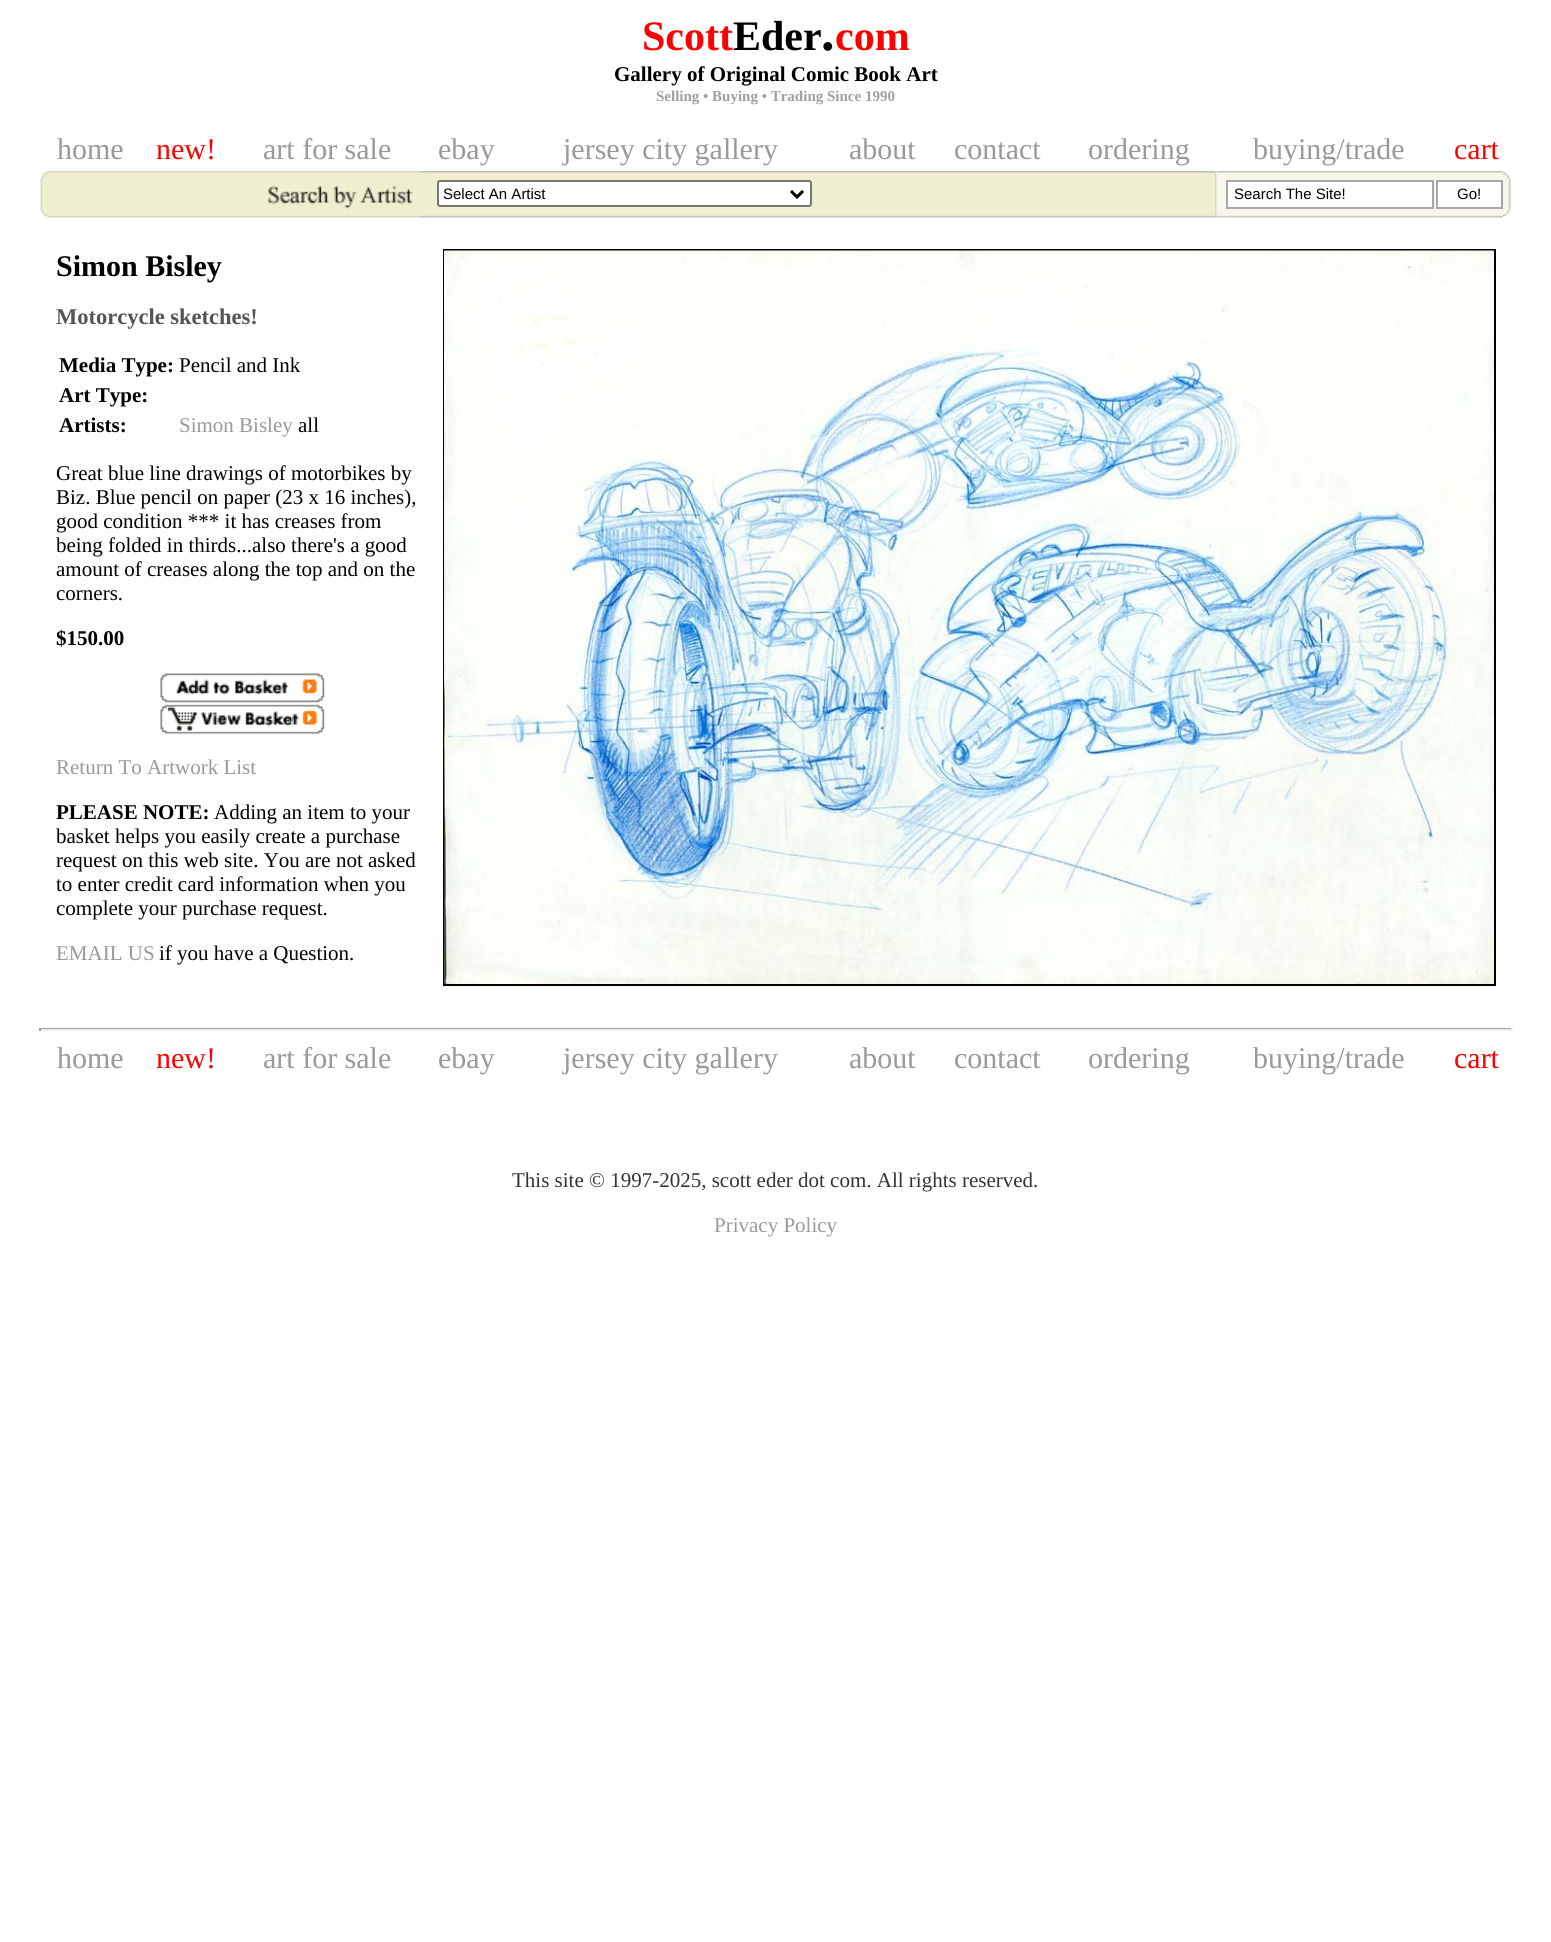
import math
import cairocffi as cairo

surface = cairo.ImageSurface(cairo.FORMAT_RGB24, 1551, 1942)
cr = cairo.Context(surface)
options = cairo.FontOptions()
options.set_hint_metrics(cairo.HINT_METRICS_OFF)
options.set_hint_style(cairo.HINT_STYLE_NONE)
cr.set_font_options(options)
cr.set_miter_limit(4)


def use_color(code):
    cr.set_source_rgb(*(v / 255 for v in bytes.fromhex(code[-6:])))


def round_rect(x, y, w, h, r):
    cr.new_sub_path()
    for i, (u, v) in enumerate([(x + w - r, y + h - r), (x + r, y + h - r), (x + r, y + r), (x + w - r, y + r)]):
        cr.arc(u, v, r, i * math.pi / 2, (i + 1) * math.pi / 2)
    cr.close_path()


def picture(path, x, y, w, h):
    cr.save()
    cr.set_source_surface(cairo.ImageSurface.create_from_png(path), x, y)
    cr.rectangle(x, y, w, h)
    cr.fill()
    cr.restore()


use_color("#ffffff")
cr.paint()
cr.select_font_face("Liberation Serif", cairo.FONT_SLANT_NORMAL, cairo.FONT_WEIGHT_BOLD)
cr.set_font_size(42)
use_color("#ff0000")
cr.move_to(642, 50)
cr.show_text("Scott")
use_color("#000000")
cr.move_to(733, 50)
cr.show_text("Eder")
cr.set_font_size(54)
cr.move_to(821, 50)
cr.show_text(".")
cr.set_font_size(42)
use_color("#ff0000")
cr.move_to(835, 50)
cr.show_text("com")
cr.set_font_size(21)
use_color("#000000")
cr.move_to(614, 81)
cr.show_text("Gallery of Original Comic Book Art")
cr.set_font_size(15)
use_color("#9f9f9f")
cr.move_to(656, 101)
cr.show_text("Selling • Buying • Trading Since 1990")
cr.select_font_face("Liberation Serif")
cr.set_font_size(30)
use_color("#999999")
cr.move_to(57, 159)
cr.show_text("home")
use_color("#ff0000")
cr.move_to(156, 159)
cr.show_text("new!")
use_color("#999999")
cr.move_to(263, 159)
cr.show_text("art for sale")
cr.move_to(438, 159)
cr.show_text("ebay")
cr.move_to(563, 159)
cr.show_text("jersey city gallery")
cr.move_to(849, 159)
cr.show_text("about")
cr.move_to(954, 159)
cr.show_text("contact")
cr.move_to(1088, 159)
cr.show_text("ordering")
cr.move_to(1253, 159)
cr.show_text("buying/trade")
use_color("#ff0000")
cr.move_to(1454, 159)
cr.show_text("cart")
picture("img1.png", 40, 171, 380, 47)
picture("img4.png", 1216, 171, 10, 47)
picture("img2.png", 1215, 171, 2, 47)
picture("img3.png", 420, 171, 795, 47)
use_color("#ffffff")
round_rect(438, 181, 373, 25, 2)
cr.fill_preserve()
use_color("#767676")
cr.stroke()
cr.new_path()
cr.move_to(791, 191)
cr.line_to(797, 197)
cr.line_to(803, 191)
use_color("#000000")
cr.set_line_width(3)
cr.stroke()
cr.select_font_face("Liberation Sans")
cr.set_font_size(15)
cr.move_to(443, 199)
cr.show_text("Select An Artist")
picture("img5.png", 1225, 171, 209, 47)
use_color("#ffffff")
cr.rectangle(1227, 181, 206, 27)
cr.fill_preserve()
use_color("#a7a6aa")
cr.set_line_width(2)
cr.stroke()
use_color("#000000")
cr.move_to(1234, 199)
cr.show_text("Search The Site!")
picture("img6.png", 1434, 171, 2, 47)
picture("img7.png", 1435, 171, 68, 47)
use_color("#ffffff")
cr.rectangle(1437, 181, 65, 27)
cr.fill_preserve()
use_color("#a7a6aa")
cr.stroke()
use_color("#000000")
cr.move_to(1457, 199)
cr.show_text("Go!")
picture("img8.png", 1503, 172, 8, 45)
cr.select_font_face("Liberation Serif", cairo.FONT_SLANT_NORMAL, cairo.FONT_WEIGHT_BOLD)
cr.set_font_size(30)
cr.move_to(56, 276)
cr.show_text("Simon Bisley")
cr.set_font_size(22.5)
use_color("#545454")
cr.move_to(56, 324)
cr.show_text("Motorcycle sketches!")
cr.set_font_size(21)
use_color("#000000")
cr.move_to(59, 372)
cr.show_text("Media Type:")
cr.select_font_face("Liberation Serif")
cr.move_to(179, 372)
cr.show_text("Pencil and Ink")
cr.select_font_face("Liberation Serif", cairo.FONT_SLANT_NORMAL, cairo.FONT_WEIGHT_BOLD)
cr.move_to(59, 402)
cr.show_text("Art Type:")
cr.move_to(59, 432)
cr.show_text("Artists:")
cr.select_font_face("Liberation Serif")
use_color("#999999")
cr.move_to(179, 432)
cr.show_text("Simon Bisley")
use_color("#000000")
cr.move_to(298, 432)
cr.show_text("all")
cr.move_to(56, 480)
cr.show_text("Great blue line drawings of motorbikes by")
cr.move_to(56, 504)
cr.show_text("Biz. Blue pencil on paper (23 x 16 inches),")
cr.move_to(56, 528)
cr.show_text("good condition *** it has creases from")
cr.move_to(56, 552)
cr.show_text("being folded in thirds...also there's a good")
cr.move_to(56, 576)
cr.show_text("amount of creases along the top and on the")
cr.move_to(56, 600)
cr.show_text("corners.")
cr.select_font_face("Liberation Serif", cairo.FONT_SLANT_NORMAL, cairo.FONT_WEIGHT_BOLD)
cr.move_to(56, 645)
cr.show_text("$150.00")
picture("img9.png", 160, 673, 165, 30)
picture("img10.png", 160, 704, 165, 30)
cr.select_font_face("Liberation Serif")
use_color("#999999")
cr.move_to(56, 774)
cr.show_text("Return To Artwork List")
cr.select_font_face("Liberation Serif", cairo.FONT_SLANT_NORMAL, cairo.FONT_WEIGHT_BOLD)
use_color("#000000")
cr.move_to(56, 819)
cr.show_text("PLEASE NOTE:")
cr.select_font_face("Liberation Serif")
cr.move_to(214, 819)
cr.show_text("Adding an item to your")
cr.move_to(56, 843)
cr.show_text("basket helps you easily create a purchase")
cr.move_to(56, 867)
cr.show_text("request on this web site. You are not asked")
cr.move_to(56, 891)
cr.show_text("to enter credit card information when you")
cr.move_to(56, 915)
cr.show_text("complete your purchase request.")
use_color("#999999")
cr.move_to(56, 960)
cr.show_text("EMAIL US")
use_color("#000000")
cr.move_to(159, 960)
cr.show_text("if you have a Question.")
cr.rectangle(444, 250, 1051, 735)
cr.stroke()
picture("img11.png", 444, 250, 1050, 734)
use_color("#9f9f9f")
cr.rectangle(39, 1028, 1473, 1)
cr.fill()
use_color("#eeeeee")
cr.rectangle(1511, 1028, 2, 3)
cr.fill()
cr.rectangle(39, 1029, 1473, 2)
cr.fill()
use_color("#9f9f9f")
cr.rectangle(39, 1028, 2, 3)
cr.fill()
cr.set_font_size(30)
use_color("#999999")
cr.move_to(57, 1068)
cr.show_text("home")
use_color("#ff0000")
cr.move_to(156, 1068)
cr.show_text("new!")
use_color("#999999")
cr.move_to(263, 1068)
cr.show_text("art for sale")
cr.move_to(438, 1068)
cr.show_text("ebay")
cr.move_to(563, 1068)
cr.show_text("jersey city gallery")
cr.move_to(849, 1068)
cr.show_text("about")
cr.move_to(954, 1068)
cr.show_text("contact")
cr.move_to(1088, 1068)
cr.show_text("ordering")
cr.move_to(1253, 1068)
cr.show_text("buying/trade")
use_color("#ff0000")
cr.move_to(1454, 1068)
cr.show_text("cart")
cr.set_font_size(21)
use_color("#333333")
cr.move_to(512, 1187)
cr.show_text("This site © 1997-2025, scott eder dot com. All rights reserved.")
use_color("#999999")
cr.move_to(714, 1232)
cr.show_text("Privacy Policy")
surface.write_to_png("result.png")
